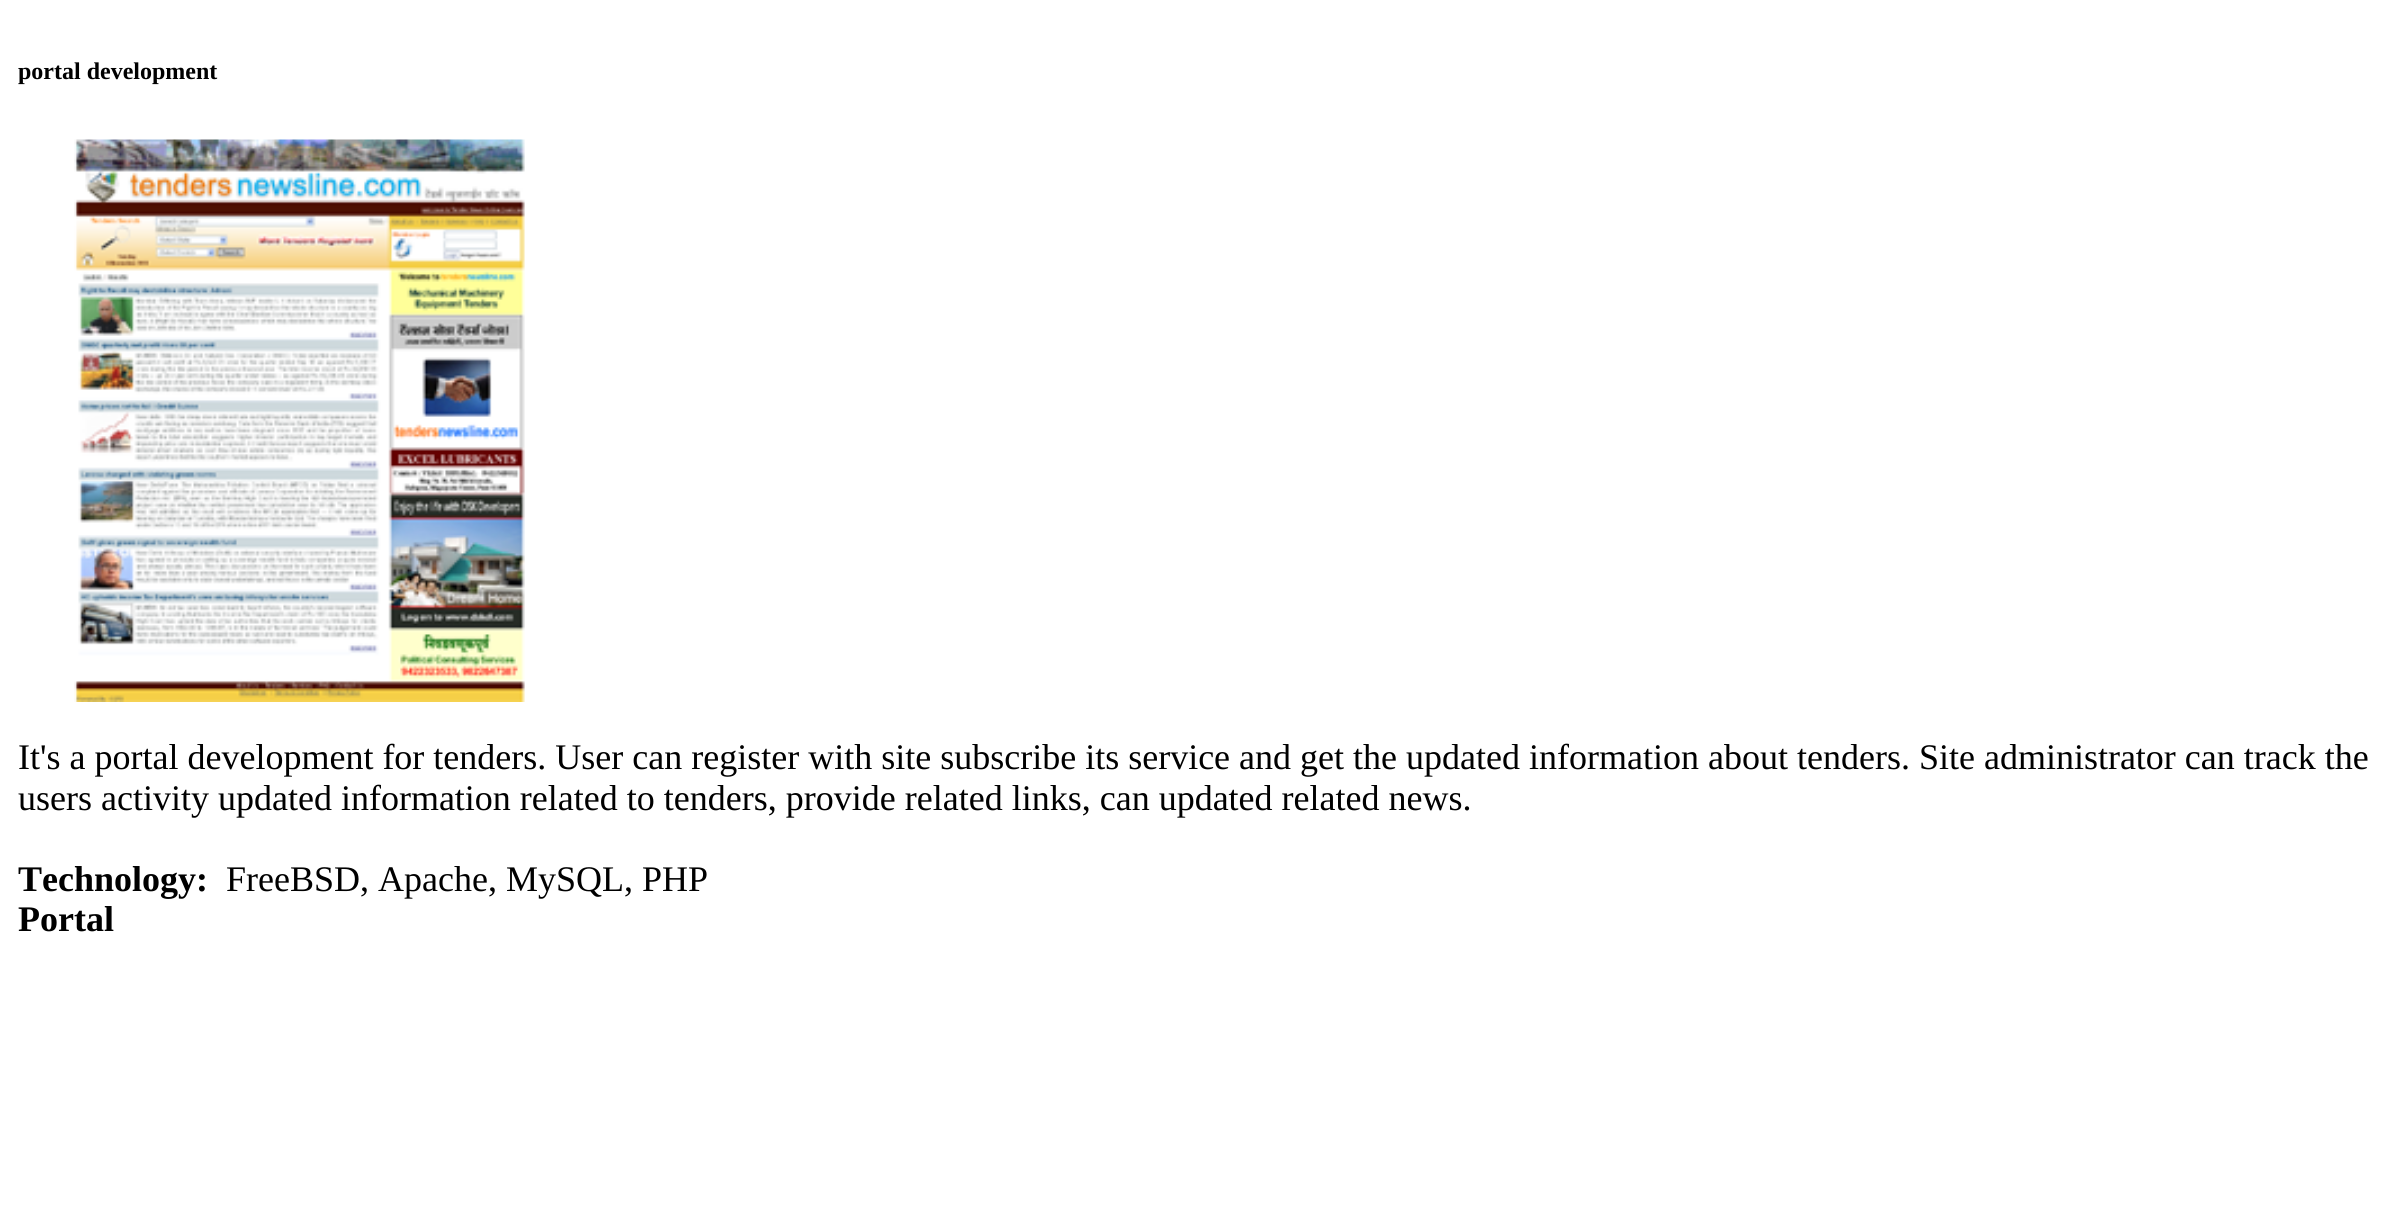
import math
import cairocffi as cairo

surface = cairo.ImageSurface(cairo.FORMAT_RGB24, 2400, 1221)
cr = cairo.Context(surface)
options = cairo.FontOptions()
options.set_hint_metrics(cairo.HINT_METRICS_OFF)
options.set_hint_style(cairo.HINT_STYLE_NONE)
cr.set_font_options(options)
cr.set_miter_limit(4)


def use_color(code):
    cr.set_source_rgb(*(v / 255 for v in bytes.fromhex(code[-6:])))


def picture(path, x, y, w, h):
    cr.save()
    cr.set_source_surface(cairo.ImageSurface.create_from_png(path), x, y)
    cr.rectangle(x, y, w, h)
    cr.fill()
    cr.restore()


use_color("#ffffff")
cr.paint()
cr.select_font_face("Liberation Serif", cairo.FONT_SLANT_NORMAL, cairo.FONT_WEIGHT_BOLD)
cr.set_font_size(24)
use_color("#000000")
cr.move_to(18, 79)
cr.show_text("portal development")
picture("img1.png", 74, 139, 451, 563)
cr.select_font_face("Liberation Serif")
cr.set_font_size(36)
cr.move_to(18, 769)
cr.show_text("It's a portal development for tenders. User can register with site subscribe its service and get the updated information about tenders. Site administrator can track the")
cr.move_to(18, 810)
cr.show_text("users activity updated information related to tenders, provide related links, can updated related news.")
cr.select_font_face("Liberation Serif", cairo.FONT_SLANT_NORMAL, cairo.FONT_WEIGHT_BOLD)
cr.move_to(18, 891)
cr.show_text("Technology:")
cr.select_font_face("Liberation Serif")
cr.move_to(226, 891)
cr.show_text("FreeBSD, Apache, MySQL, PHP")
cr.select_font_face("Liberation Serif", cairo.FONT_SLANT_NORMAL, cairo.FONT_WEIGHT_BOLD)
cr.move_to(18, 931)
cr.show_text("Portal")
surface.write_to_png("result.png")
